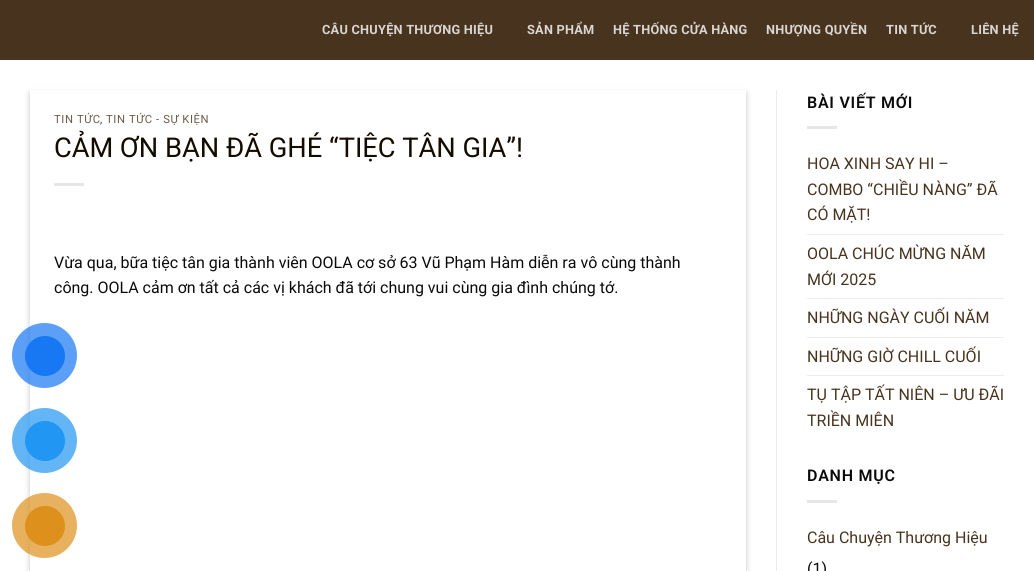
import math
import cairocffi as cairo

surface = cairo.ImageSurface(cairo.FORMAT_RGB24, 1034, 571)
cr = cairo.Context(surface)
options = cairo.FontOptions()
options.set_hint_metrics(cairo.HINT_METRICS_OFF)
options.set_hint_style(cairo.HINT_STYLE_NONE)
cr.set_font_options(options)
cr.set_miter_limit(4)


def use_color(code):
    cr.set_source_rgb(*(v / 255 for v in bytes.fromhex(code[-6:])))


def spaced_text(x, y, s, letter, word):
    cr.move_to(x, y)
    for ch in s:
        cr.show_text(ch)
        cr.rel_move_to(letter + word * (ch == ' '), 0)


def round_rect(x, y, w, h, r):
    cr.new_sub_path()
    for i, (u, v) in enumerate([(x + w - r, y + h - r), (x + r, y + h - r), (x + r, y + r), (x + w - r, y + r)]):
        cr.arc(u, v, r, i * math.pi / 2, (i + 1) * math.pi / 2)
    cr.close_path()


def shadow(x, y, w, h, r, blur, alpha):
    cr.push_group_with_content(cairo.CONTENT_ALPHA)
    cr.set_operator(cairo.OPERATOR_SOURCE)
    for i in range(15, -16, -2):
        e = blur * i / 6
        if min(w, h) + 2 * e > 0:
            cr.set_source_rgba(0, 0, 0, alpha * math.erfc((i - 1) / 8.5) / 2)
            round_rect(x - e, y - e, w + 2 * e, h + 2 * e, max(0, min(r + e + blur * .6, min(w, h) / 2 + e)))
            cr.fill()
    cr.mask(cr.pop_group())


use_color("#ffffff")
cr.paint()
cr.save()
cr.set_fill_rule(cairo.FILL_RULE_EVEN_ODD)
cr.new_path()
cr.move_to(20, 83)
cr.line_to(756, 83)
cr.line_to(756, 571)
cr.line_to(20, 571)
cr.close_path()
cr.move_to(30, 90)
cr.line_to(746, 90)
cr.line_to(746, 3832)
cr.line_to(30, 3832)
cr.close_path()
cr.clip()
use_color("#000000")
shadow(30, 93, 716, 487, 0, 3, 0.23)
cr.restore()
cr.set_source_rgba(0.094, 0.467, 0.949, 0.7)
cr.arc(44.5, 355.5, 32.5, 0, 2 * math.pi)
cr.fill()
use_color("#1877f2")
cr.arc(45, 356, 20, 0, 2 * math.pi)
cr.fill()
cr.set_source_rgba(0.129, 0.588, 0.953, 0.7)
cr.arc(44.5, 440.5, 32.5, 0, 2 * math.pi)
cr.fill()
use_color("#2196f3")
cr.arc(45, 441, 20, 0, 2 * math.pi)
cr.fill()
cr.set_source_rgba(0.867, 0.565, 0.11, 0.7)
cr.arc(44.5, 525.5, 32.5, 0, 2 * math.pi)
cr.fill()
use_color("#dd901c")
cr.arc(45, 526, 20, 0, 2 * math.pi)
cr.fill()
use_color("#48331e")
cr.rectangle(0, 0, 1034, 60)
cr.fill()
cr.select_font_face("Roboto", cairo.FONT_SLANT_NORMAL, cairo.FONT_WEIGHT_BOLD)
cr.set_font_size(12.75)
use_color("#dad6d2")
spaced_text(322, 34, "CÂU CHUYỆN THƯƠNG HIỆU", 0.25, 0)
spaced_text(527, 34, "SẢN PHẨM", 0.25, 0)
spaced_text(613, 34, "HỆ THỐNG CỬA HÀNG", 0.25, 0)
spaced_text(766, 34, "NHƯỢNG QUYỀN", 0.25, 0)
spaced_text(886, 34, "TIN TỨC", 0.25, 0)
spaced_text(971, 34, "LIÊN HỆ", 0.25, 0)
cr.select_font_face("Roboto")
cr.set_font_size(11.25)
use_color("#6d5c4b")
spaced_text(54, 123, "TIN TỨC", 0.6, 0)
use_color("#433d33")
spaced_text(100, 123, ",", 0.6, 0)
use_color("#6d5c4b")
spaced_text(106, 123, "TIN TỨC - SỰ KIỆN", 0.6, 0)
cr.set_font_size(27.25)
use_color("#140c00")
cr.move_to(54, 157)
cr.show_text("CẢM ƠN BẠN ĐÃ GHÉ “TIỆC TÂN GIA”!")
use_color("#e6e6e6")
cr.rectangle(54, 183, 30, 3)
cr.fill()
cr.set_font_size(16)
use_color("#0a0a0a")
cr.move_to(54, 268)
cr.show_text("Vừa qua, bữa tiệc tân gia thành viên OOLA cơ sở 63 Vũ Phạm Hàm diễn ra vô cùng thành")
cr.move_to(54, 293)
cr.show_text("công. OOLA cảm ơn tất cả các vị khách đã tới chung vui cùng gia đình chúng tớ.")
use_color("#ececec")
cr.rectangle(776, 90, 1, 481)
cr.fill()
cr.select_font_face("Roboto SemiBold")
use_color("#0a0a0a")
spaced_text(807, 108, "BÀI VIẾT MỚI", 0.75, 0)
use_color("#e6e6e6")
cr.rectangle(807, 126, 30, 3)
cr.fill()
cr.select_font_face("Roboto")
use_color("#48331e")
cr.move_to(807, 169)
cr.show_text("HOA XINH SAY HI –")
cr.move_to(807, 195)
cr.show_text("COMBO “CHIỀU NÀNG” ĐÃ")
cr.move_to(807, 220)
cr.show_text("CÓ MẶT!")
use_color("#ececec")
cr.rectangle(807, 234, 197, 1)
cr.fill()
use_color("#48331e")
cr.move_to(807, 259)
cr.show_text("OOLA CHÚC MỪNG NĂM")
cr.move_to(807, 285)
cr.show_text("MỚI 2025")
use_color("#ececec")
cr.rectangle(807, 298, 197, 1)
cr.fill()
use_color("#48331e")
cr.move_to(807, 323)
cr.show_text("NHỮNG NGÀY CUỐI NĂM")
use_color("#ececec")
cr.rectangle(807, 337, 197, 1)
cr.fill()
use_color("#48331e")
cr.move_to(807, 362)
cr.show_text("NHỮNG GIỜ CHILL CUỐI")
use_color("#ececec")
cr.rectangle(807, 375, 197, 1)
cr.fill()
use_color("#48331e")
cr.move_to(807, 400)
cr.show_text("TỤ TẬP TẤT NIÊN – ƯU ĐÃI")
cr.move_to(807, 426)
cr.show_text("TRIỀN MIÊN")
cr.select_font_face("Roboto SemiBold")
use_color("#0a0a0a")
spaced_text(807, 481, "DANH MỤC", 0.75, 0)
use_color("#e6e6e6")
cr.rectangle(807, 500, 30, 3)
cr.fill()
cr.select_font_face("Roboto")
use_color("#48331e")
cr.move_to(807, 543)
cr.show_text("Câu Chuyện Thương Hiệu")
use_color("#0a0a0a")
cr.move_to(807, 574)
cr.show_text("(1)")
surface.write_to_png("result.png")
